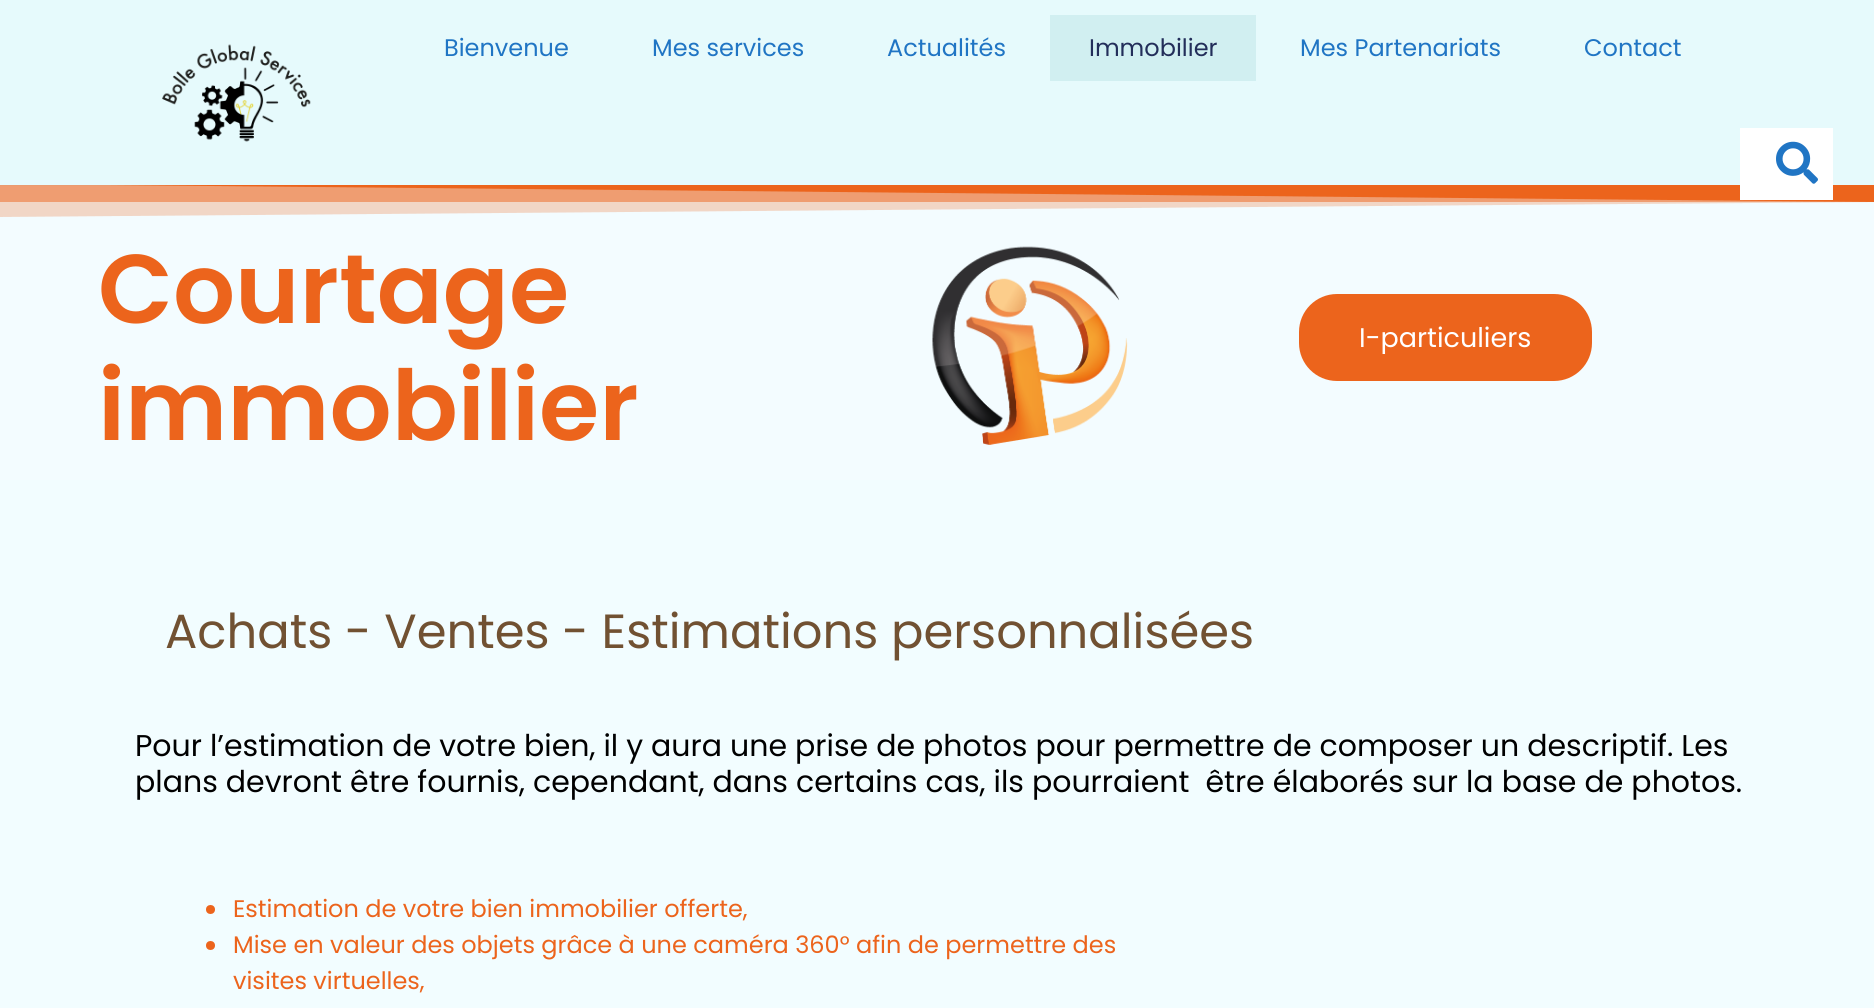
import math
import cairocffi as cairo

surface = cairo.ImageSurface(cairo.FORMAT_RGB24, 1874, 1008)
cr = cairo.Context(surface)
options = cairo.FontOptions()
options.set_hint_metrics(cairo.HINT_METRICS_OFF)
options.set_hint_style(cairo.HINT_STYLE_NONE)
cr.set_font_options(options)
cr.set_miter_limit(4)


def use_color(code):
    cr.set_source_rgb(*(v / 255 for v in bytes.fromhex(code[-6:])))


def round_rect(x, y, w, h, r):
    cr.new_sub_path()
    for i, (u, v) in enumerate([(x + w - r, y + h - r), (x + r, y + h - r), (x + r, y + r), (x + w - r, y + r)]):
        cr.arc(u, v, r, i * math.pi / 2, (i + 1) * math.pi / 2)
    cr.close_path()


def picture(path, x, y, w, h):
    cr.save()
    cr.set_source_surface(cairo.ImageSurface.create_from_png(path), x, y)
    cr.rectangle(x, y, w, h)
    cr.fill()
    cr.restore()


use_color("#e6fafc")
cr.paint()
use_color("#e9af8c")
cr.rectangle(0, 185, 208, 1)
cr.fill()
picture("img1.png", 162, 44, 149, 98)
cr.select_font_face("Poppins")
cr.set_font_size(24)
use_color("#2075c4")
cr.move_to(444, 56)
cr.show_text("Bienvenue")
cr.move_to(652, 56)
cr.show_text("Mes services")
cr.move_to(887, 56)
cr.show_text("Actualités")
use_color("#d1eff1")
cr.rectangle(1050, 15, 206, 66)
cr.fill()
use_color("#232e5a")
cr.move_to(1089, 56)
cr.show_text("Immobilier")
use_color("#2075c4")
cr.move_to(1300, 56)
cr.show_text("Mes Partenariats")
cr.move_to(1584, 56)
cr.show_text("Contact")
use_color("#f0b08e")
cr.rectangle(0, 186, 1873, 16)
cr.fill()
cr.save()
cr.rectangle(0, 185, 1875, 33)
cr.clip()
use_color("#ec641c")
cr.new_path()
cr.move_to(-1, 184)
cr.line_to(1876, 184)
cr.line_to(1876, 202)
cr.close_path()
cr.fill()
cr.restore()
use_color("#f3fcff")
cr.rectangle(0, 202, 1874, 278)
cr.fill()
cr.save()
cr.rectangle(0, 185, 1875, 33)
cr.clip()
cr.set_source_rgba(0.925, 0.392, 0.11, 0.25)
cr.new_path()
cr.move_to(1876, 184)
cr.line_to(-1, 184)
cr.line_to(-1, 217)
cr.line_to(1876, 202)
cr.close_path()
cr.fill()
cr.restore()
use_color("#ffffff")
cr.rectangle(1740, 128, 93, 72)
cr.fill()
picture("img2.png", 1776, 141, 42, 43)
cr.select_font_face("Poppins SemiBold")
cr.set_font_size(97.5)
use_color("#ec641c")
cr.move_to(98, 323)
cr.show_text("Courtage")
cr.move_to(98, 440)
cr.show_text("immobilier")
picture("img3.png", 932, 246, 196, 199)
round_rect(1299, 294, 293, 87, 38)
cr.fill()
cr.select_font_face("Poppins")
cr.set_font_size(27)
use_color("#ffffff")
cr.move_to(1359, 347)
cr.show_text("I-particuliers")
use_color("#f2fdff")
cr.rectangle(0, 480, 1874, 528)
cr.fill()
cr.set_font_size(48)
use_color("#715132")
cr.move_to(165, 648)
cr.show_text("Achats - Ventes - Estimations personnalisées")
cr.set_font_size(30)
use_color("#000000")
cr.move_to(135, 756)
cr.show_text("Pour l’estimation de votre bien, il y aura une prise de photos pour permettre de composer un descriptif. Les")
cr.move_to(135, 792)
cr.show_text("plans devront être fournis, cependant, dans certains cas, ils pourraient  être élaborés sur la base de photos.")
use_color("#ec641c")
cr.new_path()
cr.arc(210.5, 909.5, 4.5, 0, 2 * math.pi)
cr.fill()
cr.set_font_size(24)
cr.move_to(233, 917)
cr.show_text("Estimation de votre bien immobilier offerte,")
cr.new_path()
cr.arc(210.5, 945.5, 4.5, 0, 2 * math.pi)
cr.fill()
cr.move_to(233, 953)
cr.show_text("Mise en valeur des objets grâce à une caméra 360° afin de permettre des")
cr.move_to(233, 989)
cr.show_text("visites virtuelles,")
surface.write_to_png("result.png")
